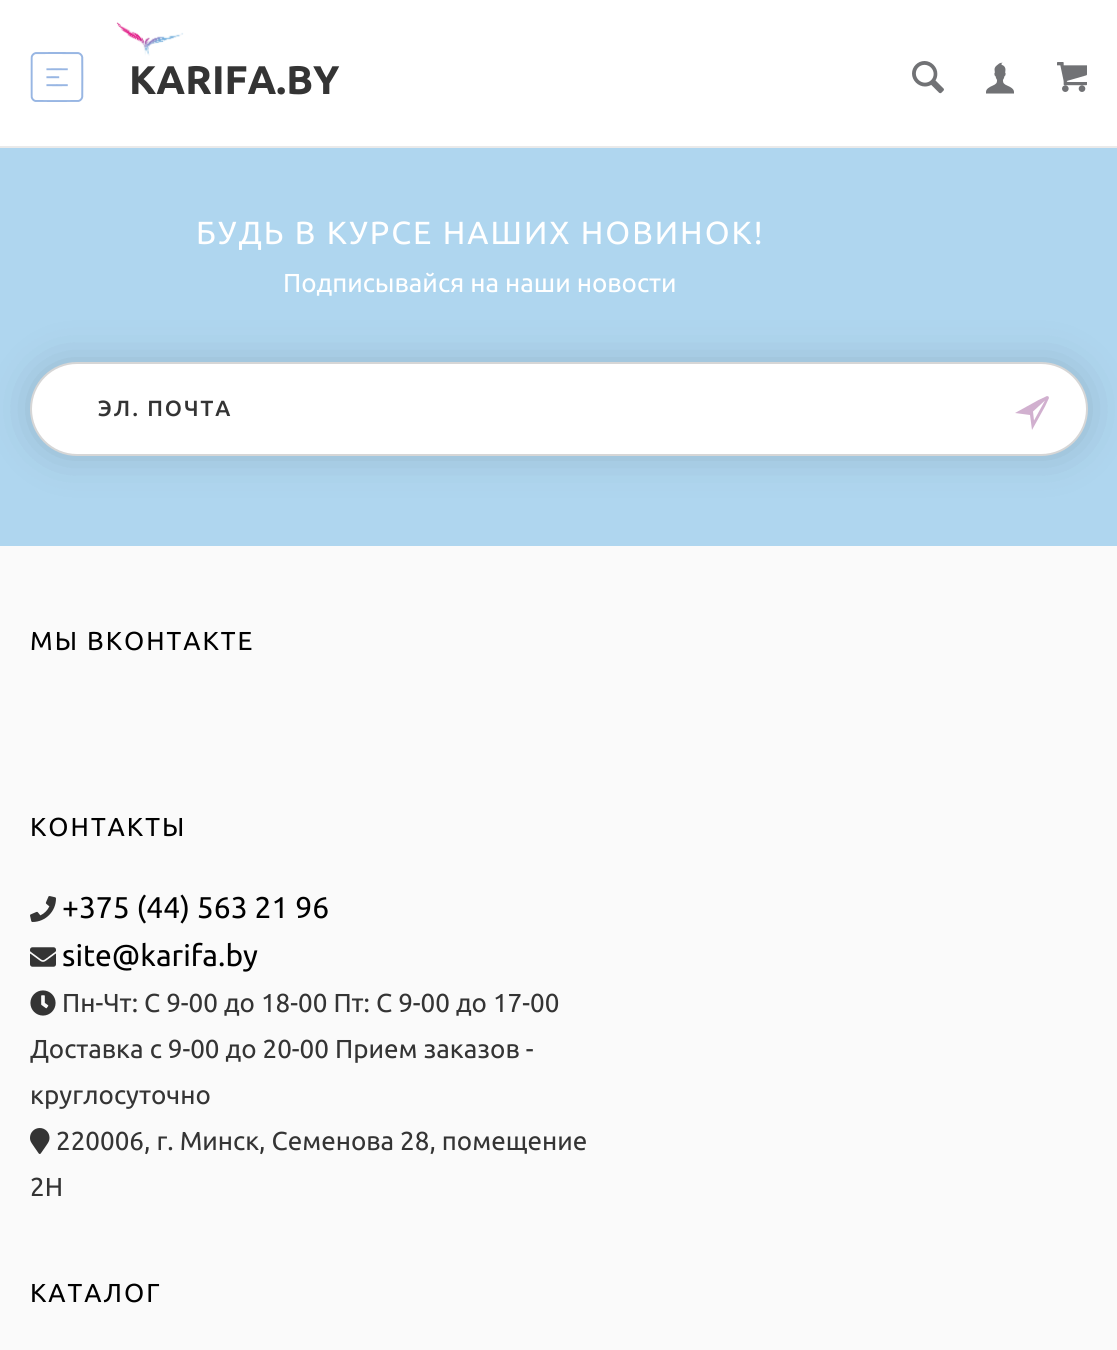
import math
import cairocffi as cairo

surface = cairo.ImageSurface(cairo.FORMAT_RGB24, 1117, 1350)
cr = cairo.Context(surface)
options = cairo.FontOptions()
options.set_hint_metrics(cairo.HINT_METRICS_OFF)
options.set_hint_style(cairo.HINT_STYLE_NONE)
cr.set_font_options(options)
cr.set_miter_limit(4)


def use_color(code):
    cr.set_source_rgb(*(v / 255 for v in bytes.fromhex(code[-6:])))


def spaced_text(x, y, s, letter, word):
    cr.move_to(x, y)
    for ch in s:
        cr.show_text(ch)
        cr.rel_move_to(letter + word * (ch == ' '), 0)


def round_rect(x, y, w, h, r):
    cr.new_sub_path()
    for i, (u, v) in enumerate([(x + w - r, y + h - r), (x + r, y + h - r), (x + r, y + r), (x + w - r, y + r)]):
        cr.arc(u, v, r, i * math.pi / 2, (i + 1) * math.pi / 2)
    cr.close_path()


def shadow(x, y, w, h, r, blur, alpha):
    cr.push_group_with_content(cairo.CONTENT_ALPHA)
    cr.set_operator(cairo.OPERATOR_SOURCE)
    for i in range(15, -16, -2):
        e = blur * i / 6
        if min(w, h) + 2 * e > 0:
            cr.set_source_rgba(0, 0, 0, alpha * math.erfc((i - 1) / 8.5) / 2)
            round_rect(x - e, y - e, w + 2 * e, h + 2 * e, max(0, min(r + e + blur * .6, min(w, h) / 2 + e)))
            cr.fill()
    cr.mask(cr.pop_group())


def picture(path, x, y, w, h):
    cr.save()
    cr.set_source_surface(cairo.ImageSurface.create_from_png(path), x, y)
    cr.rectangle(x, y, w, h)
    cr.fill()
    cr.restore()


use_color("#ffffff")
cr.paint()
cr.rectangle(-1, -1, 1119, 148)
use_color("#eaeaea")
cr.stroke()
picture("img1.png", 30, 52, 54, 50)
picture("img2.png", 116, 22, 68, 34)
cr.select_font_face("Ubuntu", cairo.FONT_SLANT_NORMAL, cairo.FONT_WEIGHT_BOLD)
cr.set_font_size(40)
use_color("#343434")
cr.move_to(129, 94)
cr.show_text("KARIFA.BY")
picture("img3.png", 912, 61, 32, 33)
picture("img4.png", 986, 62, 28, 32)
picture("img5.png", 1057, 62, 30, 30)
use_color("#afd6ef")
cr.rectangle(0, 148, 1117, 398)
cr.fill()
cr.select_font_face("Ubuntu")
cr.set_font_size(32)
use_color("#ffffff")
spaced_text(196, 244, "БУДЬ В КУРСЕ НАШИХ НОВИНОК!", 2, 0)
cr.set_font_size(26)
cr.move_to(283, 292)
cr.show_text("Подписывайся на наши новости")
use_color("#000000")
shadow(36, 368, 1046, 82, 41, 22, 0.2)
use_color("#ffffff")
round_rect(31, 363, 1056, 92, 46)
cr.fill_preserve()
use_color("#d6d6d6")
cr.stroke()
cr.select_font_face("Ubuntu Medium")
cr.set_font_size(22)
use_color("#343434")
spaced_text(98, 416, "ЭЛ. ПОЧТА", 2, 0)
use_color("#d1b0cf")
cr.new_path()
cr.move_to(1048.5, 396.5)
cr.line_to(1047, 396)
cr.line_to(1038.5, 400)
cr.line_to(1015, 413)
cr.line_to(1030, 415)
cr.line_to(1032, 430)
cr.line_to(1045, 406.5)
cr.line_to(1049, 398)
cr.close_path()
cr.move_to(1045, 400.5)
cr.line_to(1034, 420.5)
cr.line_to(1033, 411.5)
cr.close_path()
cr.fill()
use_color("#fafafa")
cr.rectangle(0, 546, 1117, 804)
cr.fill()
cr.select_font_face("Ubuntu")
cr.set_font_size(26)
use_color("#000000")
spaced_text(30, 650, "МЫ ВКОНТАКТЕ", 2, 0)
spaced_text(30, 836, "КОНТАКТЫ", 2, 0)
picture("img6.png", 30, 896, 26, 26)
cr.set_font_size(30)
cr.move_to(62, 918)
cr.show_text("+375 (44) 563 21 96")
picture("img7.png", 30, 947, 26, 20)
cr.move_to(62, 966)
cr.show_text("site@karifa.by")
picture("img8.png", 30, 990, 26, 26)
cr.set_font_size(26)
use_color("#343434")
cr.move_to(62, 1012)
cr.show_text("Пн-Чт: С 9-00 до 18-00 Пт: С 9-00 до 17-00")
cr.move_to(30, 1058)
cr.show_text("Доставка с 9-00 до 20-00 Прием заказов -")
cr.move_to(30, 1104)
cr.show_text("круглосуточно")
picture("img9.png", 30, 1128, 20, 26)
cr.move_to(56, 1150)
cr.show_text("220006, г. Минск, Семенова 28, помещение")
cr.move_to(30, 1196)
cr.show_text("2Н")
use_color("#000000")
spaced_text(30, 1302, "КАТАЛОГ", 2, 0)
surface.write_to_png("result.png")
